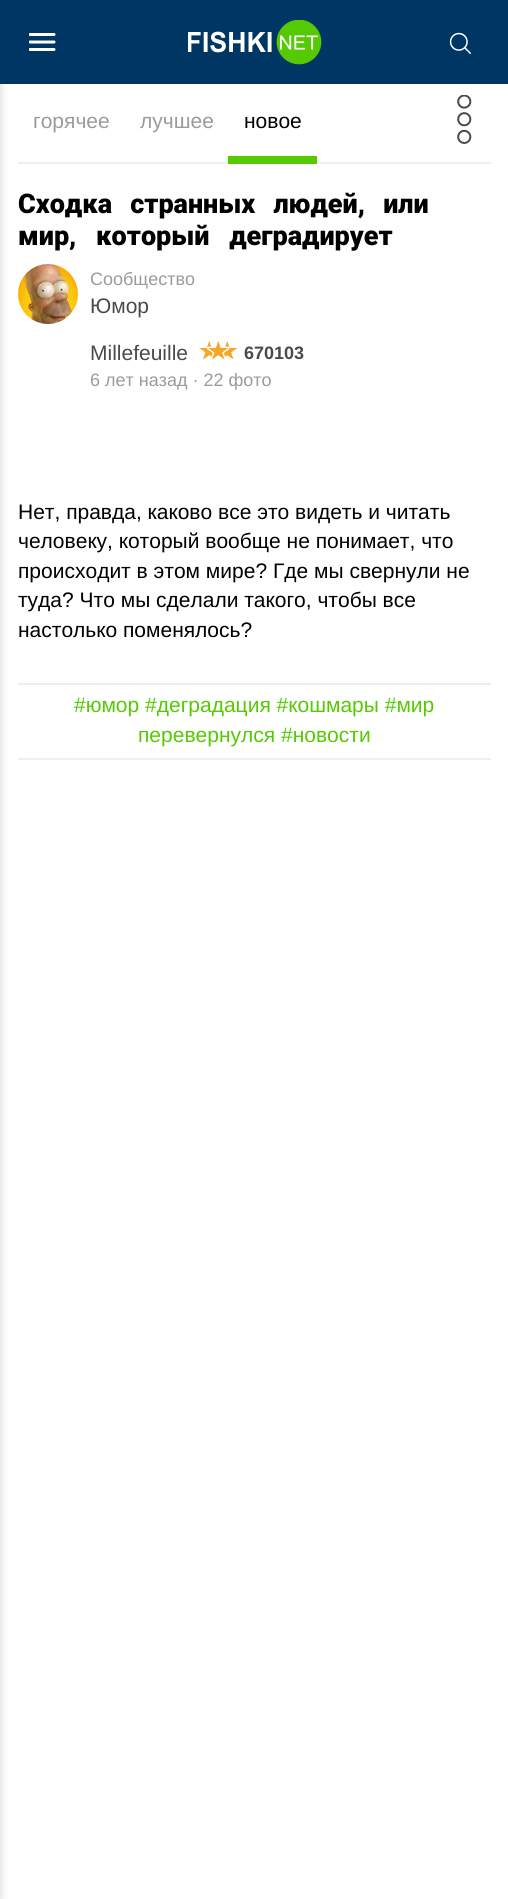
import math
import cairocffi as cairo

surface = cairo.ImageSurface(cairo.FORMAT_RGB24, 508, 1899)
cr = cairo.Context(surface)
options = cairo.FontOptions()
options.set_hint_metrics(cairo.HINT_METRICS_OFF)
options.set_hint_style(cairo.HINT_STYLE_NONE)
cr.set_font_options(options)
cr.set_miter_limit(4)


def use_color(code):
    cr.set_source_rgb(*(v / 255 for v in bytes.fromhex(code[-6:])))


def spaced_text(x, y, s, letter, word):
    cr.move_to(x, y)
    for ch in s:
        cr.show_text(ch)
        cr.rel_move_to(letter + word * (ch == ' '), 0)


def round_rect(x, y, w, h, r):
    cr.new_sub_path()
    for i, (u, v) in enumerate([(x + w - r, y + h - r), (x + r, y + h - r), (x + r, y + r), (x + w - r, y + r)]):
        cr.arc(u, v, r, i * math.pi / 2, (i + 1) * math.pi / 2)
    cr.close_path()


def shadow(x, y, w, h, r, blur, alpha):
    cr.push_group_with_content(cairo.CONTENT_ALPHA)
    cr.set_operator(cairo.OPERATOR_SOURCE)
    for i in range(15, -16, -2):
        e = blur * i / 6
        if min(w, h) + 2 * e > 0:
            cr.set_source_rgba(0, 0, 0, alpha * math.erfc((i - 1) / 8.5) / 2)
            round_rect(x - e, y - e, w + 2 * e, h + 2 * e, max(0, min(r + e + blur * .6, min(w, h) / 2 + e)))
            cr.fill()
    cr.mask(cr.pop_group())


def picture(path, x, y, w, h):
    cr.save()
    cr.set_source_surface(cairo.ImageSurface.create_from_png(path), x, y)
    cr.rectangle(x, y, w, h)
    cr.fill()
    cr.restore()


use_color("#ffffff")
cr.paint()
use_color("#4a4a4a")
shadow(-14, 0, 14, 1899, 0, 4.5, 0.25)
use_color("#003663")
cr.rectangle(0, 0, 508, 84)
cr.fill()
picture("img1.png", 29, 33, 27, 18)
picture("img2.png", 188, 20, 134, 45)
picture("img3.png", 449, 32, 22, 22)
use_color("#efefef")
cr.rectangle(18, 162, 473, 2)
cr.fill()
cr.select_font_face("Liberation Sans")
cr.set_font_size(21)
use_color("#9b9b9b")
cr.move_to(33, 128)
cr.show_text("горячее")
cr.move_to(140, 128)
cr.show_text("лучшее")
use_color("#000000")
cr.move_to(244, 128)
cr.show_text("новое")
use_color("#55ca03")
cr.rectangle(228, 156, 89, 8)
cr.fill()
picture("img4.png", 457, 95, 15, 49)
cr.select_font_face("Roboto Black")
cr.set_font_size(27)
use_color("#000000")
spaced_text(18, 213, "Сходка странных людей, или", 0, 11.5)
spaced_text(18, 245, "мир, который деградирует", 0, 13)
picture("img5.png", 18, 264, 60, 60)
cr.select_font_face("Liberation Sans")
cr.set_font_size(18)
use_color("#9b9b9b")
cr.move_to(90, 285)
cr.show_text("Сообщество")
cr.set_font_size(21)
use_color("#4a4a4a")
cr.move_to(90, 313)
cr.show_text("Юмор")
cr.move_to(90, 360)
cr.show_text("Millefeuille")
picture("img6.png", 198, 341, 19, 19)
picture("img8.png", 219, 341, 18, 19)
picture("img7.png", 207, 341, 23, 19)
cr.select_font_face("Liberation Sans", cairo.FONT_SLANT_NORMAL, cairo.FONT_WEIGHT_BOLD)
cr.set_font_size(18)
cr.move_to(244, 359)
cr.show_text("670103")
cr.select_font_face("Liberation Sans")
use_color("#9b9b9b")
cr.move_to(90, 386)
cr.show_text("6 лет назад · 22 фото")
cr.set_font_size(21)
use_color("#000000")
cr.move_to(18, 519)
cr.show_text("Нет, правда, каково все это видеть и читать")
cr.move_to(18, 548)
cr.show_text("человеку, который вообще не понимает, что")
cr.move_to(18, 578)
cr.show_text("происходит в этом мире? Где мы свернули не")
cr.move_to(18, 607)
cr.show_text("туда? Что мы сделали такого, чтобы все")
cr.move_to(18, 637)
cr.show_text("настолько поменялось?")
use_color("#efefef")
cr.rectangle(18, 683, 473, 2)
cr.fill()
cr.rectangle(18, 758, 473, 2)
cr.fill()
use_color("#55ca03")
cr.move_to(74, 712)
cr.show_text("#юмор #деградация #кошмары #мир")
cr.move_to(138, 742)
cr.show_text("перевернулся #новости")
surface.write_to_png("result.png")
